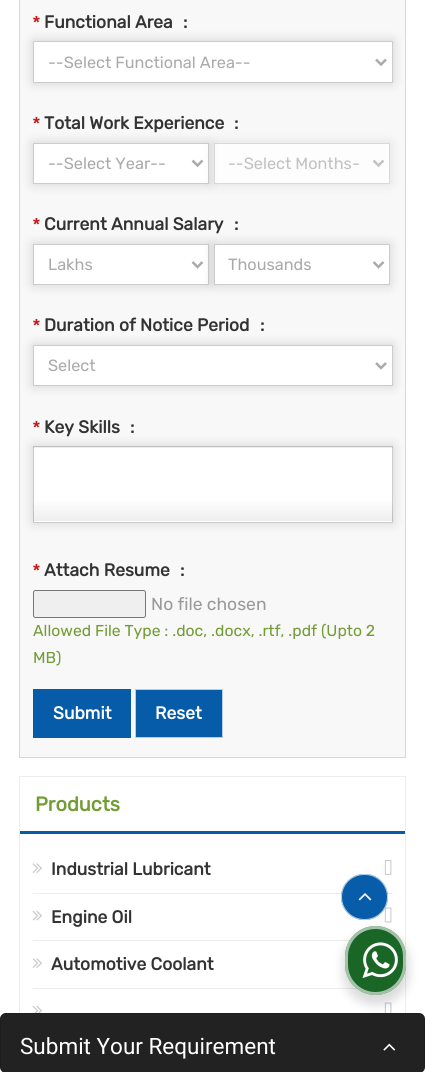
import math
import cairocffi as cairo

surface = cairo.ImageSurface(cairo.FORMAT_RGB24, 425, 1072)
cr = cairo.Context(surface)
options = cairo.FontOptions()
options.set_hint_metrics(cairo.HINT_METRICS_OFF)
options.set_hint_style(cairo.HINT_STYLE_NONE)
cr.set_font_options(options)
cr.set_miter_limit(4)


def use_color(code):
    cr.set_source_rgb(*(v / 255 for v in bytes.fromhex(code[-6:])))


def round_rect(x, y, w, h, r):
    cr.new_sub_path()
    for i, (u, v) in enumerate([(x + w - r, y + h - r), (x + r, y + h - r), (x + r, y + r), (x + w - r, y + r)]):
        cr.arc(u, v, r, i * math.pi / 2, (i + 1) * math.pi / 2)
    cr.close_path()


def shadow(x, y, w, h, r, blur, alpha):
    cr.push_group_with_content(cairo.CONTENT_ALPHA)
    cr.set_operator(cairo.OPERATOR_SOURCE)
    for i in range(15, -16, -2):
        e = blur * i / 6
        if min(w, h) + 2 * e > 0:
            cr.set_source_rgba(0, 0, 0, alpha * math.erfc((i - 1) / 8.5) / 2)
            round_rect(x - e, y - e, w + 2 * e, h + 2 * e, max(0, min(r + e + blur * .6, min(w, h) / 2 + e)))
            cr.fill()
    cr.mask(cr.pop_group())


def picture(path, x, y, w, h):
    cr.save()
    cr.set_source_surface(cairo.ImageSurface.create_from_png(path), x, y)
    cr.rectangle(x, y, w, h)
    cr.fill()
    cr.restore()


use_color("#ffffff")
cr.paint()
use_color("#f8f8f8")
cr.rectangle(19.5, -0.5, 386, 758)
cr.fill_preserve()
use_color("#d8d8d8")
cr.set_line_width(1)
cr.stroke()
cr.select_font_face("Liberation Sans", cairo.FONT_SLANT_NORMAL, cairo.FONT_WEIGHT_BOLD)
cr.set_font_size(17.5)
use_color("#c61818")
cr.move_to(33, 28)
cr.show_text("*")
cr.select_font_face("Rubik", cairo.FONT_SLANT_NORMAL, cairo.FONT_WEIGHT_BOLD)
use_color("#333333")
cr.move_to(44, 28)
cr.show_text("Functional Area")
cr.move_to(183, 28)
cr.show_text(":")
use_color("#000000")
shadow(33, 41, 360, 42, 0, 6, 0.15)
use_color("#ffffff")
cr.rectangle(33.5, 41.5, 359, 41)
cr.fill_preserve()
use_color("#cccccc")
cr.stroke()
cr.new_path()
cr.move_to(376, 59.5)
cr.line_to(381, 64.5)
cr.line_to(386, 59.5)
use_color("#aaaaaa")
cr.set_line_width(2.5)
cr.stroke()
cr.select_font_face("Rubik Light")
cr.set_font_size(16.25)
cr.move_to(48, 68)
cr.show_text("--Select Functional Area--")
cr.select_font_face("Liberation Sans", cairo.FONT_SLANT_NORMAL, cairo.FONT_WEIGHT_BOLD)
cr.set_font_size(17.5)
use_color("#c61818")
cr.move_to(33, 129)
cr.show_text("*")
cr.select_font_face("Rubik", cairo.FONT_SLANT_NORMAL, cairo.FONT_WEIGHT_BOLD)
use_color("#333333")
cr.move_to(44, 129)
cr.show_text("Total Work Experience")
cr.move_to(234, 129)
cr.show_text(":")
use_color("#000000")
shadow(33, 143, 176, 41, 0, 6, 0.15)
use_color("#ffffff")
cr.rectangle(33.5, 143.5, 175, 40)
cr.fill_preserve()
use_color("#cccccc")
cr.set_line_width(1)
cr.stroke()
cr.new_path()
cr.move_to(192.5, 160.5)
cr.line_to(197.5, 165.5)
cr.line_to(202.5, 160.5)
use_color("#aaaaaa")
cr.set_line_width(2.5)
cr.stroke()
cr.select_font_face("Rubik Light")
cr.set_font_size(16.25)
cr.move_to(48, 169)
cr.show_text("--Select Year--")
cr.save()
cr.set_fill_rule(cairo.FILL_RULE_EVEN_ODD)
cr.new_path()
cr.move_to(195, 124)
cr.line_to(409, 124)
cr.line_to(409, 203)
cr.line_to(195, 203)
cr.close_path()
cr.move_to(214, 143)
cr.line_to(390, 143)
cr.line_to(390, 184)
cr.line_to(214, 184)
cr.close_path()
cr.clip()
use_color("#000000")
shadow(214, 143, 176, 41, 0, 6, 0.1)
cr.restore()
cr.set_source_rgba(1, 1, 1, 0.7)
cr.rectangle(214.5, 143.5, 175, 40)
cr.fill_preserve()
use_color("#d9d9d9")
cr.set_line_width(1)
cr.stroke()
cr.new_path()
cr.move_to(373.5, 160.5)
cr.line_to(378.5, 165.5)
cr.line_to(383.5, 160.5)
use_color("#c1c1c1")
cr.set_line_width(2.5)
cr.stroke()
cr.move_to(228, 169)
cr.show_text("--Select Months-")
cr.select_font_face("Liberation Sans", cairo.FONT_SLANT_NORMAL, cairo.FONT_WEIGHT_BOLD)
cr.set_font_size(17.5)
use_color("#c61818")
cr.move_to(33, 230)
cr.show_text("*")
cr.select_font_face("Rubik", cairo.FONT_SLANT_NORMAL, cairo.FONT_WEIGHT_BOLD)
use_color("#333333")
cr.move_to(44, 230)
cr.show_text("Current Annual Salary")
cr.move_to(234, 230)
cr.show_text(":")
use_color("#000000")
shadow(33, 244, 176, 41, 0, 6, 0.15)
use_color("#ffffff")
cr.rectangle(33.5, 244.5, 175, 40)
cr.fill_preserve()
use_color("#cccccc")
cr.set_line_width(1)
cr.stroke()
cr.new_path()
cr.move_to(192.5, 262)
cr.line_to(197.5, 267)
cr.line_to(202.5, 262)
use_color("#aaaaaa")
cr.set_line_width(2.5)
cr.stroke()
cr.select_font_face("Rubik Light")
cr.set_font_size(16.25)
cr.move_to(48, 270)
cr.show_text("Lakhs")
use_color("#000000")
shadow(214, 244, 176, 41, 0, 6, 0.15)
use_color("#ffffff")
cr.rectangle(214.5, 244.5, 175, 40)
cr.fill_preserve()
use_color("#cccccc")
cr.set_line_width(1)
cr.stroke()
cr.new_path()
cr.move_to(373.5, 262)
cr.line_to(378.5, 267)
cr.line_to(383.5, 262)
use_color("#aaaaaa")
cr.set_line_width(2.5)
cr.stroke()
cr.move_to(228, 270)
cr.show_text("Thousands")
cr.select_font_face("Liberation Sans", cairo.FONT_SLANT_NORMAL, cairo.FONT_WEIGHT_BOLD)
cr.set_font_size(17.5)
use_color("#c61818")
cr.move_to(33, 331)
cr.show_text("*")
cr.select_font_face("Rubik", cairo.FONT_SLANT_NORMAL, cairo.FONT_WEIGHT_BOLD)
use_color("#333333")
cr.move_to(44, 331)
cr.show_text("Duration of Notice Period")
cr.move_to(260, 331)
cr.show_text(":")
use_color("#000000")
shadow(33, 345, 360, 41, 0, 6, 0.15)
use_color("#ffffff")
cr.rectangle(33.5, 345.5, 359, 40)
cr.fill_preserve()
use_color("#cccccc")
cr.set_line_width(1)
cr.stroke()
cr.new_path()
cr.move_to(376, 363)
cr.line_to(381, 368)
cr.line_to(386, 363)
use_color("#aaaaaa")
cr.set_line_width(2.5)
cr.stroke()
cr.select_font_face("Rubik Light")
cr.set_font_size(16.25)
cr.move_to(48, 371)
cr.show_text("Select")
cr.select_font_face("Liberation Sans", cairo.FONT_SLANT_NORMAL, cairo.FONT_WEIGHT_BOLD)
cr.set_font_size(17.5)
use_color("#c61818")
cr.move_to(33, 433)
cr.show_text("*")
cr.select_font_face("Rubik", cairo.FONT_SLANT_NORMAL, cairo.FONT_WEIGHT_BOLD)
use_color("#333333")
cr.move_to(44, 433)
cr.show_text("Key Skills")
cr.move_to(130, 433)
cr.show_text(":")
use_color("#000000")
shadow(33, 446, 360, 77, 0, 6, 0.15)
gradient = cairo.LinearGradient(213, 374, 213, 448)
gradient.add_color_stop_rgba(0.7, 1, 1, 1, 1)
gradient.add_color_stop_rgba(1, 0.933, 0.933, 0.933, 1)
cr.set_source(gradient)
cr.rectangle(33, 446, 360, 2)
cr.fill()
gradient = cairo.LinearGradient(213, 448, 213, 521)
gradient.add_color_stop_rgba(0.7, 1, 1, 1, 1)
gradient.add_color_stop_rgba(1, 0.933, 0.933, 0.933, 1)
cr.set_source(gradient)
cr.rectangle(33, 448, 360, 73)
cr.fill()
gradient = cairo.LinearGradient(213, 521, 213, 595)
gradient.add_color_stop_rgba(0.7, 1, 1, 1, 1)
gradient.add_color_stop_rgba(1, 0.933, 0.933, 0.933, 1)
cr.set_source(gradient)
cr.rectangle(33, 521, 360, 2)
cr.fill()
cr.rectangle(33.5, 446.5, 359, 76)
cr.set_source_rgba(0, 0, 0, 0.2)
cr.set_line_width(1)
cr.stroke()
cr.select_font_face("Liberation Sans", cairo.FONT_SLANT_NORMAL, cairo.FONT_WEIGHT_BOLD)
use_color("#c61818")
cr.move_to(33, 576)
cr.show_text("*")
cr.select_font_face("Rubik", cairo.FONT_SLANT_NORMAL, cairo.FONT_WEIGHT_BOLD)
use_color("#333333")
cr.move_to(44, 576)
cr.show_text("Attach Resume")
cr.move_to(180, 576)
cr.show_text(":")
use_color("#efefef")
round_rect(33.5, 590.5, 112, 27, 2)
cr.fill_preserve()
use_color("#767676")
cr.stroke()
cr.select_font_face("Rubik Light")
use_color("#999999")
cr.move_to(151, 610)
cr.show_text("No file chosen")
cr.set_font_size(15.75)
use_color("#729c34")
cr.move_to(33, 636)
cr.show_text("Allowed File Type : .doc, .docx, .rtf, .pdf (Upto 2")
cr.move_to(33, 663)
cr.show_text("MB)")
use_color("#075ca9")
cr.rectangle(33, 689, 98, 49)
cr.fill()
cr.select_font_face("Rubik", cairo.FONT_SLANT_NORMAL, cairo.FONT_WEIGHT_BOLD)
cr.set_font_size(17.5)
use_color("#ffffff")
cr.move_to(53, 719)
cr.show_text("Submit")
use_color("#075ca9")
cr.rectangle(135.5, 689.5, 87, 48)
cr.fill_preserve()
use_color("#b5cee5")
cr.stroke()
use_color("#ffffff")
cr.move_to(155, 719)
cr.show_text("Reset")
cr.rectangle(19.5, 776.5, 386, 272)
use_color("#ededed")
cr.stroke()
use_color("#075ca9")
cr.rectangle(20, 831, 385, 3)
cr.fill()
cr.set_font_size(20)
use_color("#729c34")
cr.move_to(35, 811)
cr.show_text("Products")
use_color("#ededed")
cr.rectangle(33, 893, 360, 1)
cr.fill()
picture("img1.png", 32, 863, 10, 10)
cr.set_font_size(17.5)
use_color("#333333")
cr.move_to(51, 875)
cr.show_text("Industrial Lubricant")
picture("img2.png", 384, 860, 8, 15)
use_color("#ededed")
cr.rectangle(33, 940, 317, 1)
cr.fill()
picture("img3.png", 32, 910, 10, 11)
use_color("#333333")
cr.move_to(51, 923)
cr.show_text("Engine Oil")
picture("img4.png", 384, 907, 8, 16)
use_color("#ededed")
cr.rectangle(33, 988, 325, 1)
cr.fill()
picture("img1.png", 32, 958, 10, 10)
use_color("#333333")
cr.move_to(51, 970)
cr.show_text("Automotive Coolant")
picture("img5.png", 32, 1005, 10, 8)
picture("img6.png", 384, 1002, 8, 11)
cr.set_source_rgba(0.027, 0.361, 0.663, 0.99)
round_rect(341, 874, 47, 46, 23)
cr.fill()
round_rect(341.5, 874.5, 46, 45, 22.5)
cr.set_source_rgba(1, 1, 1, 0.69)
cr.stroke()
picture("img7.png", 358, 893, 14, 8)
use_color("#000000")
shadow(343, 931, 66, 74, 33, 5, 0.14)
use_color("#196626")
round_rect(345, 926, 61, 69, 30.5)
cr.fill()
round_rect(346.5, 927.5, 58, 66, 29)
cr.set_source_rgba(1, 1, 1, 0.6)
cr.set_line_width(3)
cr.stroke()
picture("img8.png", 362, 942, 36, 36)
use_color("#222222")
round_rect(0, 1013, 425, 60, 6)
cr.fill()
round_rect(0.5, 1013.5, 424, 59, 5.5)
cr.set_source_rgba(0, 0, 0, 0.13)
cr.set_line_width(1)
cr.stroke()
cr.select_font_face("Roboto")
cr.set_font_size(22.5)
use_color("#ffffff")
cr.move_to(20, 1054)
cr.show_text("Submit Your Requirement")
picture("img9.png", 383, 1043, 13, 8)
surface.write_to_png("result.png")
